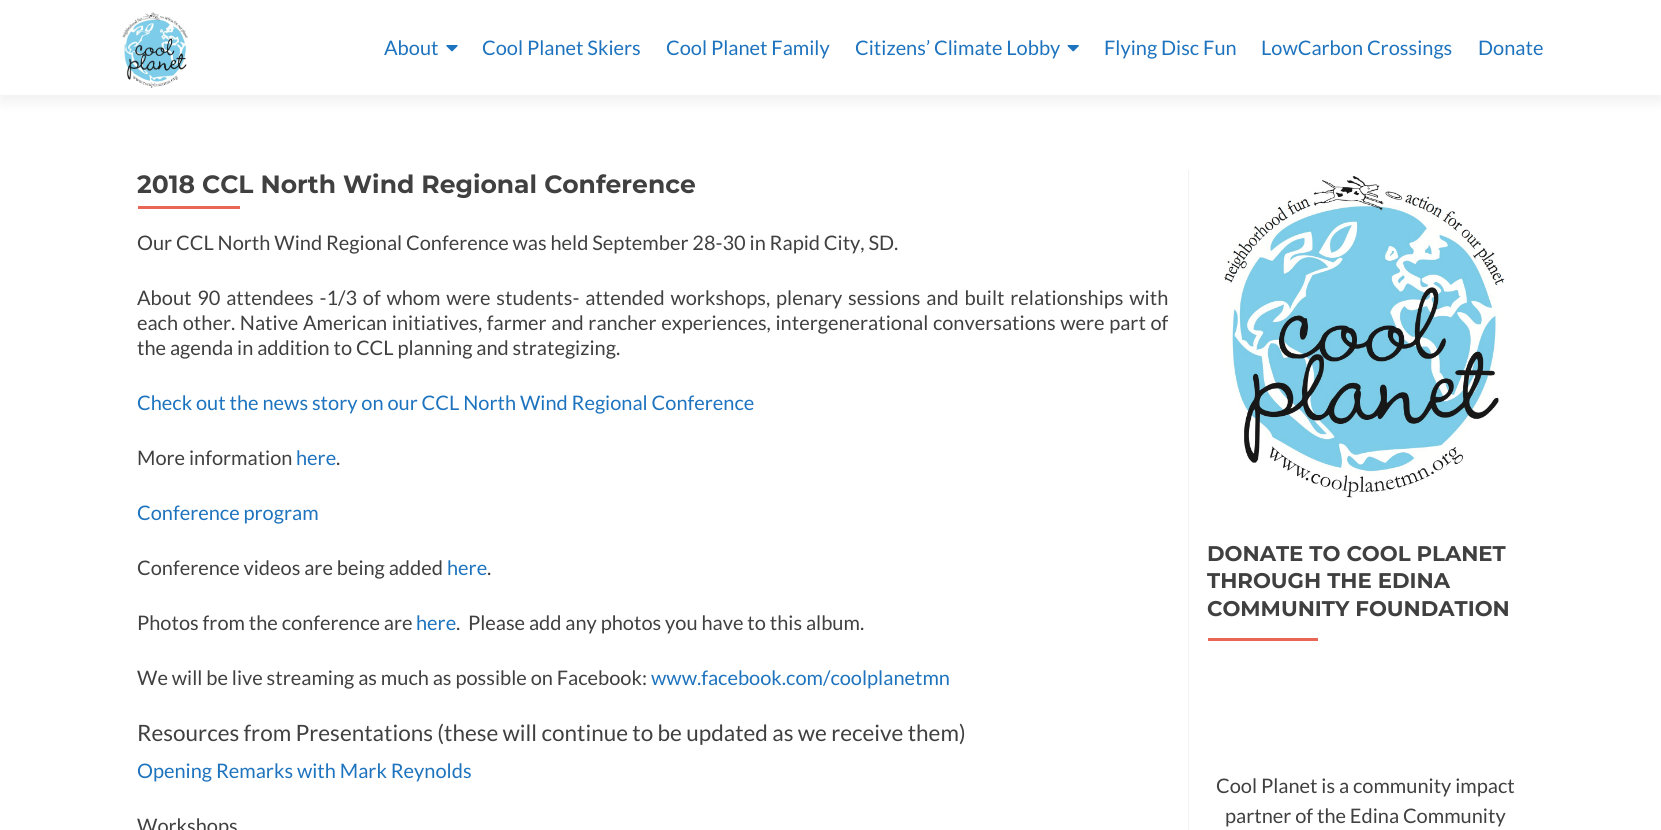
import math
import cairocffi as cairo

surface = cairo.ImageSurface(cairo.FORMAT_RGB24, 1661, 830)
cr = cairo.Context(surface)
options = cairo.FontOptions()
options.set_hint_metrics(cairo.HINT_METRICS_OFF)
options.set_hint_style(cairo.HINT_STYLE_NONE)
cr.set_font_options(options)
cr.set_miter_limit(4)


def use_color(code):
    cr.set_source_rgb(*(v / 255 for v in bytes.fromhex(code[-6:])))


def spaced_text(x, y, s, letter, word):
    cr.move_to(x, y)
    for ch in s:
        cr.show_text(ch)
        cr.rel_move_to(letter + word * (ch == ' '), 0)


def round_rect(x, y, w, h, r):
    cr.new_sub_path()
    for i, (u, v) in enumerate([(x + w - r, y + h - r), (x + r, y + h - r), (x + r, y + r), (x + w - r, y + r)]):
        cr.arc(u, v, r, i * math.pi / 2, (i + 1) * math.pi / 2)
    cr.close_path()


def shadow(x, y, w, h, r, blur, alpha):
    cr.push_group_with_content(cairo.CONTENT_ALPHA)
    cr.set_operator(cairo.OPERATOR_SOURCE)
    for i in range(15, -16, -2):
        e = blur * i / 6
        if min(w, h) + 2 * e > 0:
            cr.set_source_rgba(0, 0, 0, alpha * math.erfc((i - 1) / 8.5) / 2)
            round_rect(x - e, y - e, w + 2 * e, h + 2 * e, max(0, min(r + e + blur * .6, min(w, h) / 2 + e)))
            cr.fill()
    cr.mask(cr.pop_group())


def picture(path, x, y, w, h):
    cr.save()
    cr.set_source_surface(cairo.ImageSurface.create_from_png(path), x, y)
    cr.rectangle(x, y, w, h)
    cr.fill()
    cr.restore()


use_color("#ffffff")
cr.paint()
use_color("#323232")
shadow(0, 6, 1661, 95, 0, 7, 0.08)
use_color("#ffffff")
cr.rectangle(0, 0, 1661, 95)
cr.fill()
picture("img1.png", 122, 12, 66, 76)
cr.select_font_face("Lato")
cr.set_font_size(20)
use_color("#1e73be")
cr.move_to(384, 55)
cr.show_text("About")
picture("img2.png", 446, 45, 12, 7)
cr.move_to(482, 55)
cr.show_text("Cool Planet Skiers")
cr.move_to(666, 55)
cr.show_text("Cool Planet Family")
cr.move_to(855, 55)
cr.show_text("Citizens’ Climate Lobby")
picture("img3.png", 1067, 45, 12, 7)
cr.move_to(1104, 55)
cr.show_text("Flying Disc Fun")
cr.move_to(1261, 55)
cr.show_text("LowCarbon Crossings")
cr.move_to(1478, 55)
cr.show_text("Donate")
cr.select_font_face("Montserrat Thin")
cr.set_font_size(25)
use_color("#404040")
cr.move_to(137, 193)
cr.show_text("2018 CCL North Wind Regional Conference")
use_color("#e96656")
cr.rectangle(138, 206, 102, 3)
cr.fill()
cr.select_font_face("Lato")
cr.set_font_size(20)
use_color("#404040")
cr.move_to(137, 250)
cr.show_text("Our CCL North Wind Regional Conference was held September 28-30 in Rapid City, SD.")
spaced_text(137, 305, "About 90 attendees -1/3 of whom were students- attended workshops, plenary sessions and built relationships with", 0, 1.9)
spaced_text(137, 330, "each other. Native American initiatives, farmer and rancher experiences, intergenerational conversations were part of", 0, 0.75)
cr.move_to(137, 355)
cr.show_text("the agenda in addition to CCL planning and strategizing.")
use_color("#1e73be")
cr.move_to(137, 410)
cr.show_text("Check out the news story on our CCL North Wind Regional Conference")
use_color("#404040")
cr.move_to(137, 465)
cr.show_text("More information")
use_color("#1e73be")
cr.move_to(296, 465)
cr.show_text("here")
use_color("#404040")
cr.move_to(336, 465)
cr.show_text(".")
use_color("#1e73be")
cr.move_to(137, 520)
cr.show_text("Conference program")
use_color("#404040")
cr.move_to(137, 575)
cr.show_text("Conference videos are being added")
use_color("#1e73be")
cr.move_to(447, 575)
cr.show_text("here")
use_color("#404040")
cr.move_to(487, 575)
cr.show_text(".")
cr.move_to(137, 630)
cr.show_text("Photos from the conference are")
use_color("#1e73be")
cr.move_to(416, 630)
cr.show_text("here")
use_color("#404040")
cr.move_to(456, 630)
cr.show_text(".  Please add any photos you have to this album.")
cr.move_to(137, 685)
cr.show_text("We will be live streaming as much as possible on Facebook:")
use_color("#1e73be")
cr.move_to(651, 685)
cr.show_text("www.facebook.com/coolplanetmn")
cr.set_font_size(22.5)
use_color("#404040")
cr.move_to(137, 741)
cr.show_text("Resources from Presentations (these will continue to be updated as we receive them)")
cr.set_font_size(20)
use_color("#1e73be")
cr.move_to(137, 778)
cr.show_text("Opening Remarks with Mark Reynolds")
use_color("#404040")
cr.move_to(137, 833)
cr.show_text("Workshops")
use_color("#f2f2f2")
cr.rectangle(1188, 170, 1, 660)
cr.fill()
picture("img4.png", 1223, 176, 282, 322)
cr.select_font_face("Montserrat Thin")
cr.set_font_size(21.25)
use_color("#404040")
cr.move_to(1207, 561)
cr.show_text("DONATE TO COOL PLANET")
cr.move_to(1207, 588)
cr.show_text("THROUGH THE EDINA")
cr.move_to(1207, 616)
cr.show_text("COMMUNITY FOUNDATION")
use_color("#e96656")
cr.rectangle(1208, 638, 110, 3)
cr.fill()
cr.select_font_face("Lato")
cr.set_font_size(20)
use_color("#404040")
cr.move_to(1216, 793)
cr.show_text("Cool Planet is a community impact")
cr.move_to(1225, 823)
cr.show_text("partner of the Edina Community")
surface.write_to_png("result.png")
